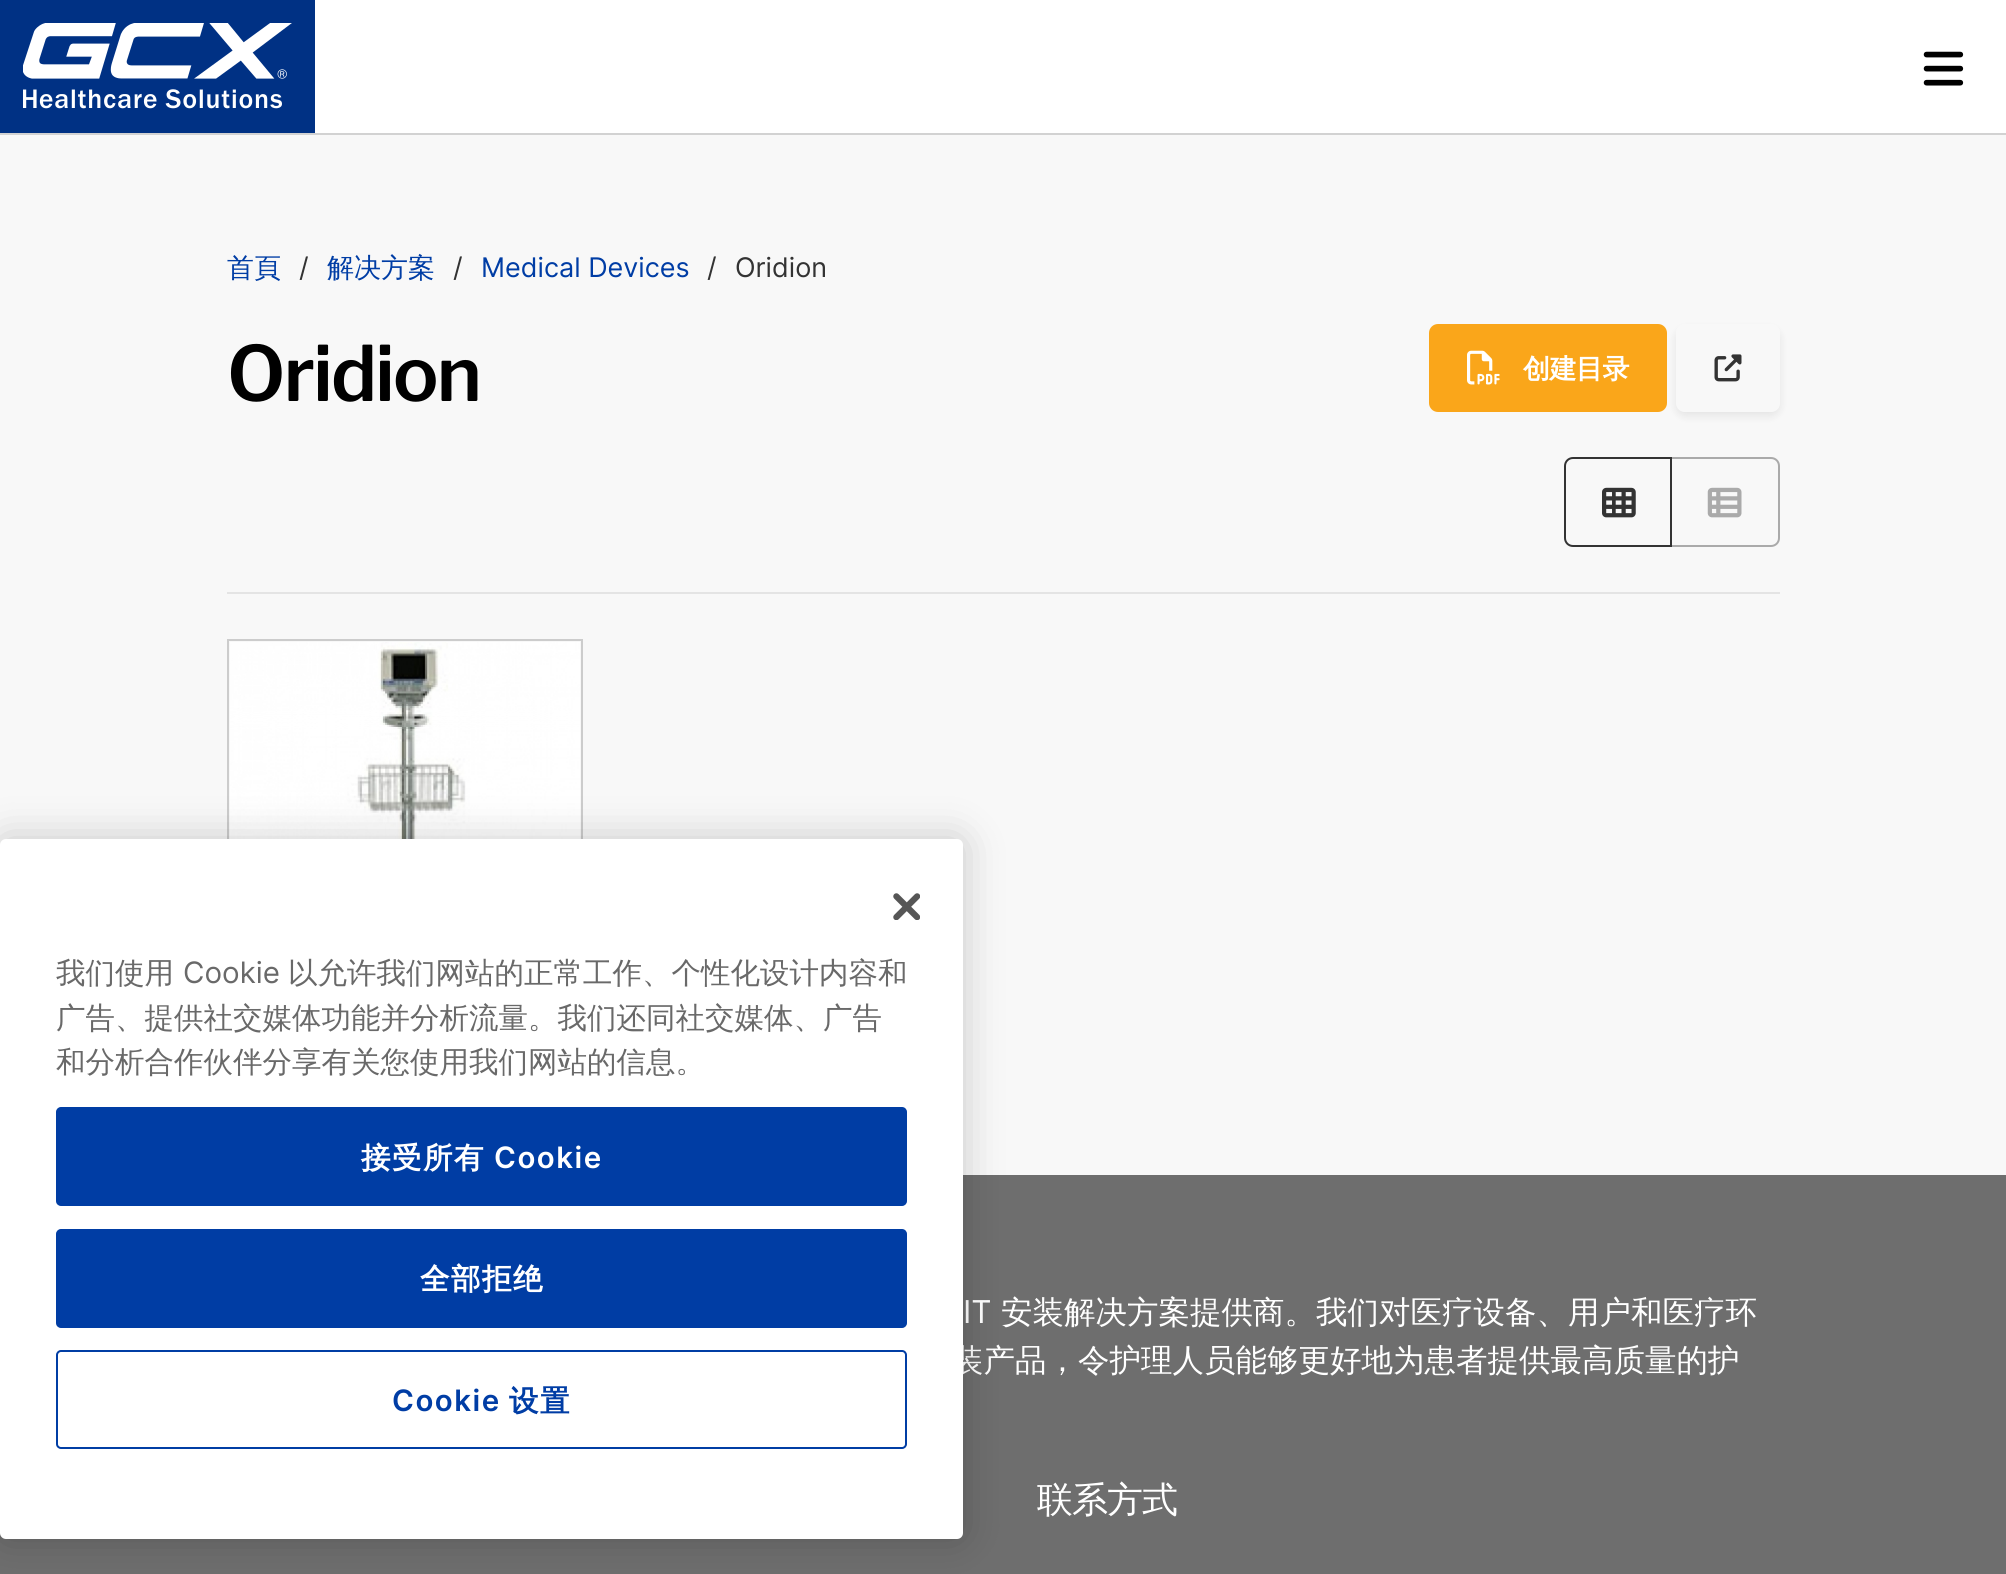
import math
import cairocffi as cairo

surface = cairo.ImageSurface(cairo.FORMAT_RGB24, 2006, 1574)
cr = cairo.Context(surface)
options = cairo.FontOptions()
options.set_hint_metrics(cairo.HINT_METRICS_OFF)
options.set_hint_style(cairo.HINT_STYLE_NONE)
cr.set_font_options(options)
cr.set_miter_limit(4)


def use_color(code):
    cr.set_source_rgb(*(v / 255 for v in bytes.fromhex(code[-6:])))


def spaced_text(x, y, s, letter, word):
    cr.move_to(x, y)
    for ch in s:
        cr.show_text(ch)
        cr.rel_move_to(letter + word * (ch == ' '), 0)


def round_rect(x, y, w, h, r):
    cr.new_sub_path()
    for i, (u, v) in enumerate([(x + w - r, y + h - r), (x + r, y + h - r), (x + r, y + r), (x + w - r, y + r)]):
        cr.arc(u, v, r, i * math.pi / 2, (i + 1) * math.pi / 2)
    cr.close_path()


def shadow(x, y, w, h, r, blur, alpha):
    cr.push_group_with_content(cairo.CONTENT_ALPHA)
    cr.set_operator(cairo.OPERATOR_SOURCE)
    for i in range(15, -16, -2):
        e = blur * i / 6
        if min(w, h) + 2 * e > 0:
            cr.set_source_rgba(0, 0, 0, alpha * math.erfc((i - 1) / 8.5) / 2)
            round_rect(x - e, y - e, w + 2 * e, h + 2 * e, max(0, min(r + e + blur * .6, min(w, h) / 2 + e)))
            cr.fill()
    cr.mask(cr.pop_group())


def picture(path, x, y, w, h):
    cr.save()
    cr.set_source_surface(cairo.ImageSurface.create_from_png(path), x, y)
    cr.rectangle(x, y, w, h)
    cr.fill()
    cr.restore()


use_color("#f8f8f8")
cr.paint()
use_color("#ffffff")
cr.rectangle(315, 0, 1691, 133)
cr.fill()
use_color("#d2d2d2")
cr.rectangle(0, 133, 2006, 2)
cr.fill()
use_color("#003184")
cr.rectangle(0, 0, 315, 133)
cr.fill()
picture("img1.png", 23, 23, 269, 86)
picture("img2.png", 1923, 51, 41, 35)
cr.select_font_face("WenQuanYi Zen Hei Medium")
cr.set_font_size(27)
use_color("#003da5")
cr.move_to(227, 277)
cr.show_text("首頁")
cr.select_font_face("Inter")
use_color("#333333")
cr.move_to(299, 277)
cr.show_text("/")
cr.select_font_face("WenQuanYi Zen Hei Medium")
use_color("#003da5")
cr.move_to(327, 277)
cr.show_text("解决方案")
cr.select_font_face("Inter")
use_color("#333333")
cr.move_to(453, 277)
cr.show_text("/")
use_color("#003da5")
cr.move_to(481, 277)
cr.show_text("Medical Devices")
use_color("#333333")
cr.move_to(707, 277)
cr.show_text("/")
cr.move_to(735, 277)
cr.show_text("Oridion")
cr.select_font_face("Libre Franklin SemiBold")
cr.set_font_size(76)
use_color("#000000")
spaced_text(227, 401, "Oridion", -1.75, 0)
use_color("#faa61a")
round_rect(1429, 324, 238, 88, 9)
cr.fill()
picture("img3.png", 1467, 350, 33, 35)
cr.select_font_face("WenQuanYi Zen Hei", cairo.FONT_SLANT_NORMAL, cairo.FONT_WEIGHT_BOLD)
cr.set_font_size(27)
use_color("#ffffff")
spaced_text(1523, 378, "创建目录", -0.5, 0)
cr.save()
cr.set_fill_rule(cairo.FILL_RULE_EVEN_ODD)
cr.new_path()
cr.move_to(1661, 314)
cr.line_to(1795, 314)
cr.line_to(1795, 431)
cr.line_to(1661, 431)
cr.close_path()
cr.move_to(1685, 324)
cr.line_to(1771, 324)
cr.curve_to(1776, 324, 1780, 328, 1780, 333)
cr.line_to(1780, 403)
cr.curve_to(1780, 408, 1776, 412, 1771, 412)
cr.line_to(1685, 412)
cr.curve_to(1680, 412, 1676, 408, 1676, 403)
cr.line_to(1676, 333)
cr.curve_to(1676, 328, 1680, 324, 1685, 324)
cr.close_path()
cr.clip()
use_color("#000000")
shadow(1676, 329, 104, 87, 9, 4.5, 0.08)
cr.restore()
picture("img4.png", 1714, 354, 28, 28)
cr.new_path()
cr.move_to(1671, 458)
cr.line_to(1771, 458)
cr.curve_to(1775.5, 458, 1779, 461.5, 1779, 466)
cr.line_to(1779, 538)
cr.curve_to(1779, 542.5, 1775.5, 546, 1771, 546)
cr.line_to(1671, 546)
cr.close_path()
use_color("#aaaaaa")
cr.stroke()
cr.new_path()
cr.move_to(1573, 458)
cr.line_to(1671, 458)
cr.line_to(1671, 546)
cr.line_to(1573, 546)
cr.curve_to(1568.5, 546, 1565, 542.5, 1565, 538)
cr.line_to(1565, 466)
cr.curve_to(1565, 461.5, 1568.5, 458, 1573, 458)
cr.close_path()
use_color("#333333")
cr.stroke()
picture("img5.png", 1602, 487, 34, 31)
picture("img6.png", 1707, 487, 35, 31)
use_color("#e4e4e4")
cr.rectangle(227, 592, 1553, 2)
cr.fill()
cr.rectangle(228, 640, 354, 351)
use_color("#cccccc")
cr.stroke()
picture("img7.png", 230, 642, 350, 197)
use_color("#6e6e6e")
cr.rectangle(0, 1175, 2006, 399)
cr.fill()
cr.select_font_face("Inter")
cr.set_font_size(31.5)
use_color("#ffffff")
cr.move_to(963, 1323)
cr.show_text("IT")
cr.select_font_face("WenQuanYi Zen Hei Medium")
cr.move_to(1001, 1323)
cr.show_text("安装解决方案提供商。我们对医疗设备、用户和医疗环")
cr.move_to(952, 1371)
cr.show_text("装产品，令护理人员能够更好地为患者提供最高质量的护")
cr.set_font_size(36)
spaced_text(1037, 1512, "联系方式", -1, 0)
use_color("#000000")
shadow(0, 839, 963, 700, 6, 20, 0.2)
use_color("#ffffff")
round_rect(0, 839, 963, 700, 6)
cr.fill()
picture("img8.png", 893, 893, 27, 27)
cr.set_font_size(29.5)
use_color("#696969")
cr.move_to(56, 983)
cr.show_text("我们使用")
cr.select_font_face("Inter")
cr.move_to(183, 983)
cr.show_text("Cookie")
cr.select_font_face("WenQuanYi Zen Hei Medium")
cr.move_to(288, 983)
cr.show_text("以允许我们网站的正常工作、个性化设计内容和")
cr.move_to(56, 1028)
cr.show_text("广告、提供社交媒体功能并分析流量。我们还同社交媒体、广告")
cr.move_to(56, 1072)
cr.show_text("和分析合作伙伴分享有关您使用我们网站的信息。")
use_color("#003da4")
round_rect(57, 1108, 849, 97, 4)
cr.fill_preserve()
cr.stroke()
cr.select_font_face("WenQuanYi Zen Hei", cairo.FONT_SLANT_NORMAL, cairo.FONT_WEIGHT_BOLD)
use_color("#ffffff")
spaced_text(361, 1168, "接受所有", 1.5, 0)
cr.select_font_face("Inter SemiBold")
spaced_text(494, 1168, "Cookie", 1.5, 0)
use_color("#003da4")
round_rect(57, 1230, 849, 97, 4)
cr.fill_preserve()
cr.stroke()
cr.select_font_face("WenQuanYi Zen Hei", cairo.FONT_SLANT_NORMAL, cairo.FONT_WEIGHT_BOLD)
use_color("#ffffff")
spaced_text(420, 1289, "全部拒绝", 1.5, 0)
round_rect(57, 1351, 849, 97, 4)
use_color("#003da4")
cr.stroke()
cr.select_font_face("Inter SemiBold")
use_color("#003da5")
spaced_text(392, 1411, "Cookie", 1.5, 0)
cr.select_font_face("WenQuanYi Zen Hei", cairo.FONT_SLANT_NORMAL, cairo.FONT_WEIGHT_BOLD)
spaced_text(509, 1411, "设置", 1.5, 0)
surface.write_to_png("result.png")
